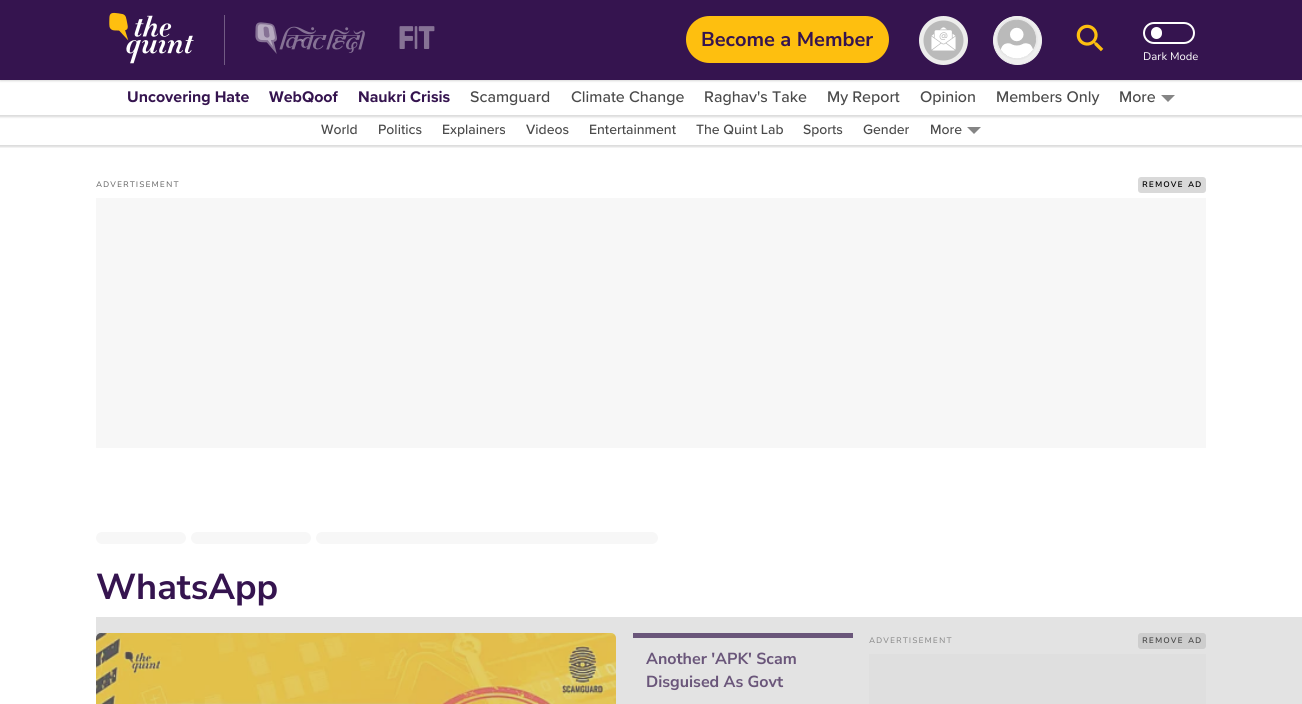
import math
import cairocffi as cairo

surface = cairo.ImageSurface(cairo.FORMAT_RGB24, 1302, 704)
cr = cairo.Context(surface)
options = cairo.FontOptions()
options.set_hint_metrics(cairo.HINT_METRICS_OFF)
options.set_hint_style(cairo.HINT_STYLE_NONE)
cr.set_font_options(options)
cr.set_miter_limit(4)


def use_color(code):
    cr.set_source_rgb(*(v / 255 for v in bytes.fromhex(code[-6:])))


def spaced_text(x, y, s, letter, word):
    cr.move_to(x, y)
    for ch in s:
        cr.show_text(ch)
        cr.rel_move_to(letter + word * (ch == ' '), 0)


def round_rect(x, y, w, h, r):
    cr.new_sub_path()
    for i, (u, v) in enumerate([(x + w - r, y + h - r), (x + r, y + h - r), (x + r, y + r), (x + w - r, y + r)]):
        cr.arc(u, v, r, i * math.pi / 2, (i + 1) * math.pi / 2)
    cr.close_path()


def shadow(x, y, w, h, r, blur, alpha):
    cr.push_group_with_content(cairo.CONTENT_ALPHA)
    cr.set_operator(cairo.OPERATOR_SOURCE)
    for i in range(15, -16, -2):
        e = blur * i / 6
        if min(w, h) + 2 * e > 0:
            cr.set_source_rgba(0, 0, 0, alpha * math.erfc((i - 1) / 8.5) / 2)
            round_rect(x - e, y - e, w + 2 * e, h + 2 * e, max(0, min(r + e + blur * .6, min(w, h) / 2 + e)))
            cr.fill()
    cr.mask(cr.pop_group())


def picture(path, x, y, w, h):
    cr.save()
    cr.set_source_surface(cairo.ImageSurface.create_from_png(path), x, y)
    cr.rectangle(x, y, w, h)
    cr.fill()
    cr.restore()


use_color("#ffffff")
cr.paint()
use_color("#e3e3e3")
cr.rectangle(96, 617, 1206, 87)
cr.fill()
use_color("#000000")
shadow(-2, 78, 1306, 39, 0, 1, 0.15)
cr.save()
cr.rectangle(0, 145, 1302, 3)
cr.clip()
shadow(-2, 113, 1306, 34, 0, 1, 0.15)
cr.restore()
use_color("#ffffff")
cr.rectangle(0, 80, 1302, 35)
cr.fill()
use_color("#000000")
shadow(0, 1, 1302, 80, 0, 1, 0.15)
use_color("#35144f")
cr.rectangle(0, 0, 1302, 80)
cr.fill()
picture("img1.png", 109, 12, 85, 52)
use_color("#725b84")
cr.rectangle(224, 15, 1, 50)
cr.fill()
picture("img2.png", 255, 22, 110, 32)
picture("img3.png", 399, 26, 36, 23)
use_color("#febf0f")
round_rect(686, 16, 203, 47, 23.5)
cr.fill()
cr.select_font_face("Nunito Sans", cairo.FONT_SLANT_NORMAL, cairo.FONT_WEIGHT_BOLD)
cr.set_font_size(20)
use_color("#35144f")
cr.move_to(701, 46)
cr.show_text("Become a Member")
picture("img4.png", 919, 16, 49, 49)
use_color("#efefef")
cr.arc(1017.5, 40.5, 24, 0, 2 * math.pi)
cr.fill_preserve()
cr.set_line_width(1)
cr.stroke()
picture("img5.png", 996, 16, 42, 44)
picture("img6.png", 1076, 24, 28, 28)
round_rect(1144, 23, 50, 20, 10)
use_color("#ffffff")
cr.set_line_width(2)
cr.stroke()
round_rect(1151, 27, 11, 12, 5.5)
cr.fill()
cr.select_font_face("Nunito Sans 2")
cr.set_font_size(11)
cr.move_to(1143, 60)
cr.show_text("Dark Mode")
cr.select_font_face("Proxima Nova", cairo.FONT_SLANT_NORMAL, cairo.FONT_WEIGHT_BOLD)
cr.set_font_size(16)
use_color("#35144f")
cr.move_to(127, 102)
cr.show_text("Uncovering Hate")
cr.move_to(269, 102)
cr.show_text("WebQoof")
cr.move_to(358, 102)
cr.show_text("Naukri Crisis")
cr.select_font_face("Proxima Nova Medium")
use_color("#4a4a4a")
cr.move_to(470, 102)
cr.show_text("Scamguard")
cr.move_to(571, 102)
cr.show_text("Climate Change")
cr.move_to(704, 102)
cr.show_text("Raghav's Take")
cr.move_to(827, 102)
cr.show_text("My Report")
cr.move_to(920, 102)
cr.show_text("Opinion")
cr.move_to(996, 102)
cr.show_text("Members Only")
cr.move_to(1119, 102)
cr.show_text("More")
use_color("#858585")
cr.new_path()
cr.move_to(1161, 95)
cr.line_to(1175, 95)
cr.line_to(1168, 102)
cr.close_path()
cr.fill()
cr.set_font_size(14)
use_color("#4a4a4a")
cr.move_to(321, 134)
cr.show_text("World")
cr.move_to(378, 134)
cr.show_text("Politics")
cr.move_to(442, 134)
cr.show_text("Explainers")
cr.move_to(526, 134)
cr.show_text("Videos")
cr.move_to(589, 134)
cr.show_text("Entertainment")
cr.move_to(696, 134)
cr.show_text("The Quint Lab")
cr.move_to(803, 134)
cr.show_text("Sports")
cr.move_to(863, 134)
cr.show_text("Gender")
cr.move_to(930, 134)
cr.show_text("More")
use_color("#858585")
cr.new_path()
cr.move_to(967, 127)
cr.line_to(981, 127)
cr.line_to(974, 134)
cr.close_path()
cr.fill()
cr.select_font_face("Nunito Sans")
cr.set_font_size(8)
use_color("#676767")
spaced_text(96, 187, "ADVERTISEMENT", 1, 0)
use_color("#d9d9d9")
round_rect(1138, 177, 68, 16, 3)
cr.fill()
cr.select_font_face("Nunito Sans SemiBold")
use_color("#000000")
spaced_text(1142, 187, "REMOVE AD", 1, 1)
use_color("#f7f7f7")
cr.rectangle(96, 198, 1110, 250)
cr.fill()
round_rect(96, 532, 90, 12, 6)
cr.fill()
round_rect(191, 532, 120, 12, 6)
cr.fill()
round_rect(316, 532, 342, 12, 6)
cr.fill()
cr.select_font_face("Nunito Sans", cairo.FONT_SLANT_NORMAL, cairo.FONT_WEIGHT_BOLD)
cr.set_font_size(36)
use_color("#35144f")
cr.move_to(96, 599)
cr.show_text("WhatsApp")
picture("img7.png", 96, 633, 520, 71)
cr.select_font_face("Nunito Sans")
cr.set_font_size(8)
use_color("#888888")
spaced_text(869, 643, "ADVERTISEMENT", 1, 0)
use_color("#cdcdcd")
round_rect(1138, 633, 68, 16, 3)
cr.fill()
cr.select_font_face("Nunito Sans SemiBold")
use_color("#4a4a4a")
spaced_text(1142, 643, "REMOVE AD", 1, 1)
use_color("#dfdfdf")
cr.rectangle(869, 654, 337, 50)
cr.fill()
use_color("#6a567a")
cr.rectangle(633, 633, 220, 5)
cr.fill()
cr.select_font_face("Nunito Sans", cairo.FONT_SLANT_NORMAL, cairo.FONT_WEIGHT_BOLD)
cr.set_font_size(16)
cr.move_to(646, 664)
cr.show_text("Another 'APK' Scam")
cr.move_to(646, 687)
cr.show_text("Disguised As Govt")
surface.write_to_png("result.png")
